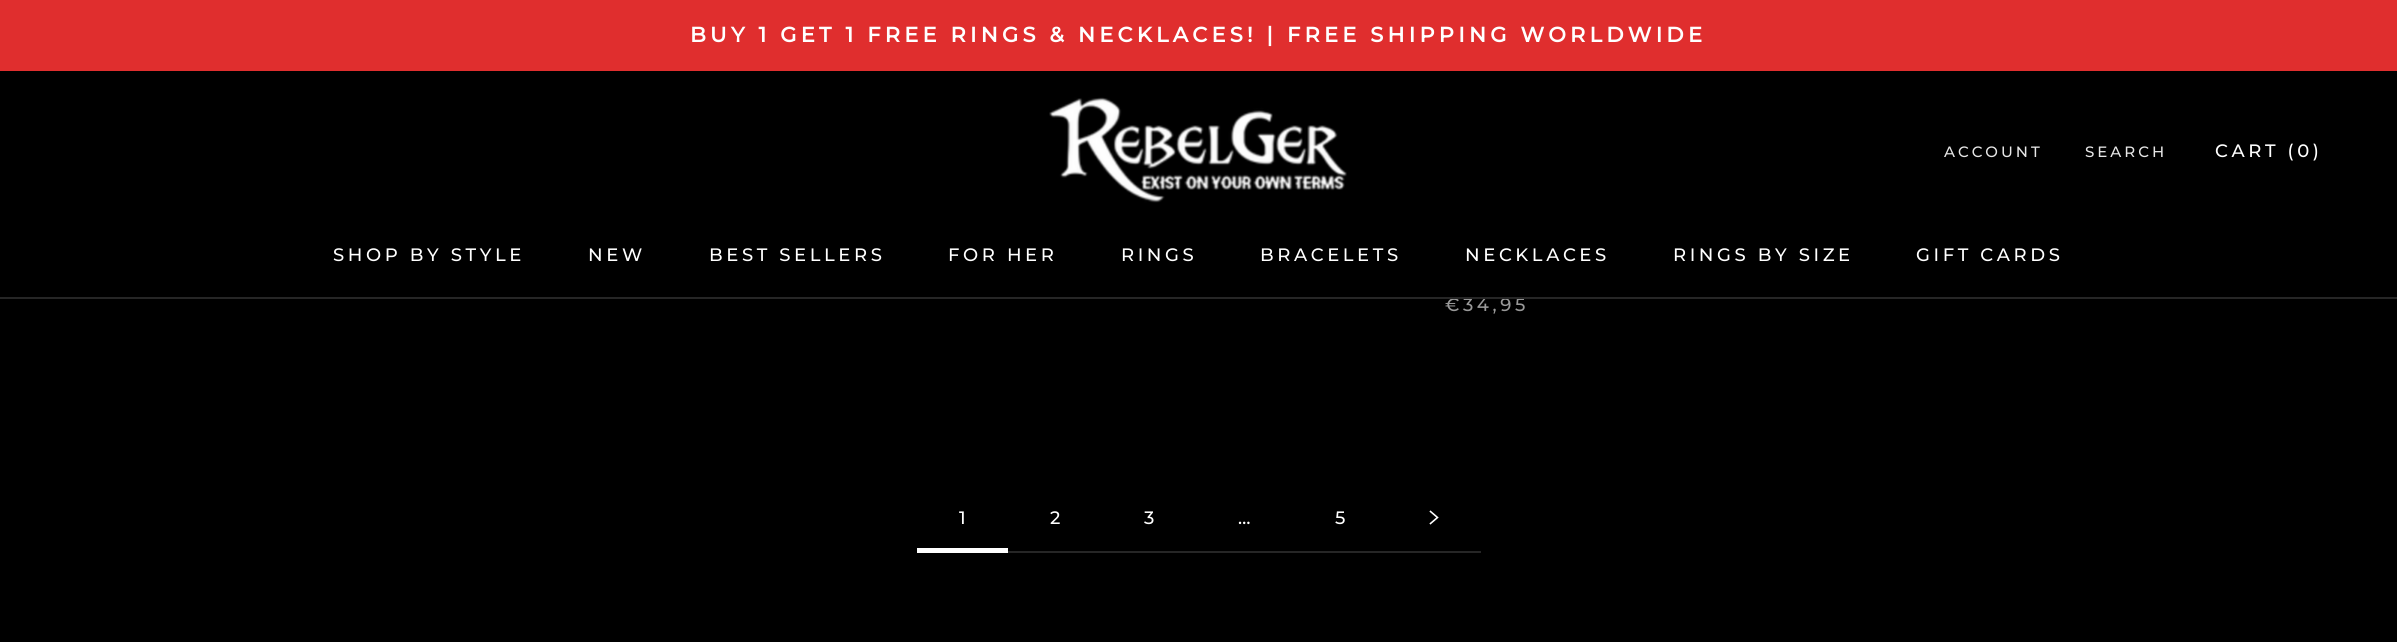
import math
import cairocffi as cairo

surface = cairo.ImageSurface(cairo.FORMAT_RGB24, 2397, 642)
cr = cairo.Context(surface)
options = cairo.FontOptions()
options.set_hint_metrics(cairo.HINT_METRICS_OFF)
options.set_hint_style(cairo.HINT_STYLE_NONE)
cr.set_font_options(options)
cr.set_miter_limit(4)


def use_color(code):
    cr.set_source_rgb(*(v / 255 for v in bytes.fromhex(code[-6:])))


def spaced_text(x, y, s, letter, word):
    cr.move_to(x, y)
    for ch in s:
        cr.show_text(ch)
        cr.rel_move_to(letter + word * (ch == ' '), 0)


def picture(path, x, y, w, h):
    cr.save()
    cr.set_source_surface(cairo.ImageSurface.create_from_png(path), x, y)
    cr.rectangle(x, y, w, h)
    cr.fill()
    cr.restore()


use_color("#000000")
cr.paint()
use_color("#e02e2e")
cr.rectangle(0, 0, 2397, 71)
cr.fill()
cr.select_font_face("Montserrat", cairo.FONT_SLANT_NORMAL, cairo.FONT_WEIGHT_BOLD)
cr.set_font_size(21)
use_color("#ffffff")
spaced_text(690, 42, "BUY 1 GET 1 FREE RINGS & NECKLACES! | FREE SHIPPING WORLDWIDE", 4.2, 0)
cr.select_font_face("Montserrat Medium")
cr.set_font_size(18)
use_color("#999999")
spaced_text(1445, 311, "€34,95", 3.6, 0)
use_color("#262626")
cr.rectangle(0, 297, 2397, 2)
cr.fill()
picture("img1.png", 1049, 97, 298, 106)
cr.set_font_size(15)
use_color("#e6e6e6")
spaced_text(1944, 157, "ACCOUNT", 3, 0)
spaced_text(2085, 157, "SEARCH", 3, 0)
cr.set_font_size(18)
use_color("#ffffff")
spaced_text(2215, 157, "CART (0)", 3.6, 0)
spaced_text(333, 261, "SHOP BY STYLE", 3.6, 0)
spaced_text(588, 261, "NEW", 3.6, 0)
spaced_text(709, 261, "BEST SELLERS", 3.6, 0)
spaced_text(948, 261, "FOR HER", 3.6, 0)
spaced_text(1121, 261, "RINGS", 3.6, 0)
spaced_text(1260, 261, "BRACELETS", 3.6, 0)
spaced_text(1465, 261, "NECKLACES", 3.6, 0)
spaced_text(1673, 261, "RINGS BY SIZE", 3.6, 0)
spaced_text(1916, 261, "GIFT CARDS", 3.6, 0)
cr.rectangle(917, 548, 91, 5)
cr.fill()
cr.move_to(959, 524)
cr.show_text("1")
use_color("#262626")
cr.rectangle(1008, 551, 473, 2)
cr.fill()
use_color("#ffffff")
cr.move_to(1050, 524)
cr.show_text("2")
cr.move_to(1144, 524)
cr.show_text("3")
cr.move_to(1238, 524)
cr.show_text("…")
cr.move_to(1335, 524)
cr.show_text("5")
cr.new_path()
cr.move_to(1430.5, 511.5)
cr.line_to(1437.5, 517.5)
cr.line_to(1430.5, 523.5)
cr.set_line_width(1.6)
cr.set_line_cap(cairo.LINE_CAP_SQUARE)
cr.stroke()
surface.write_to_png("result.png")
